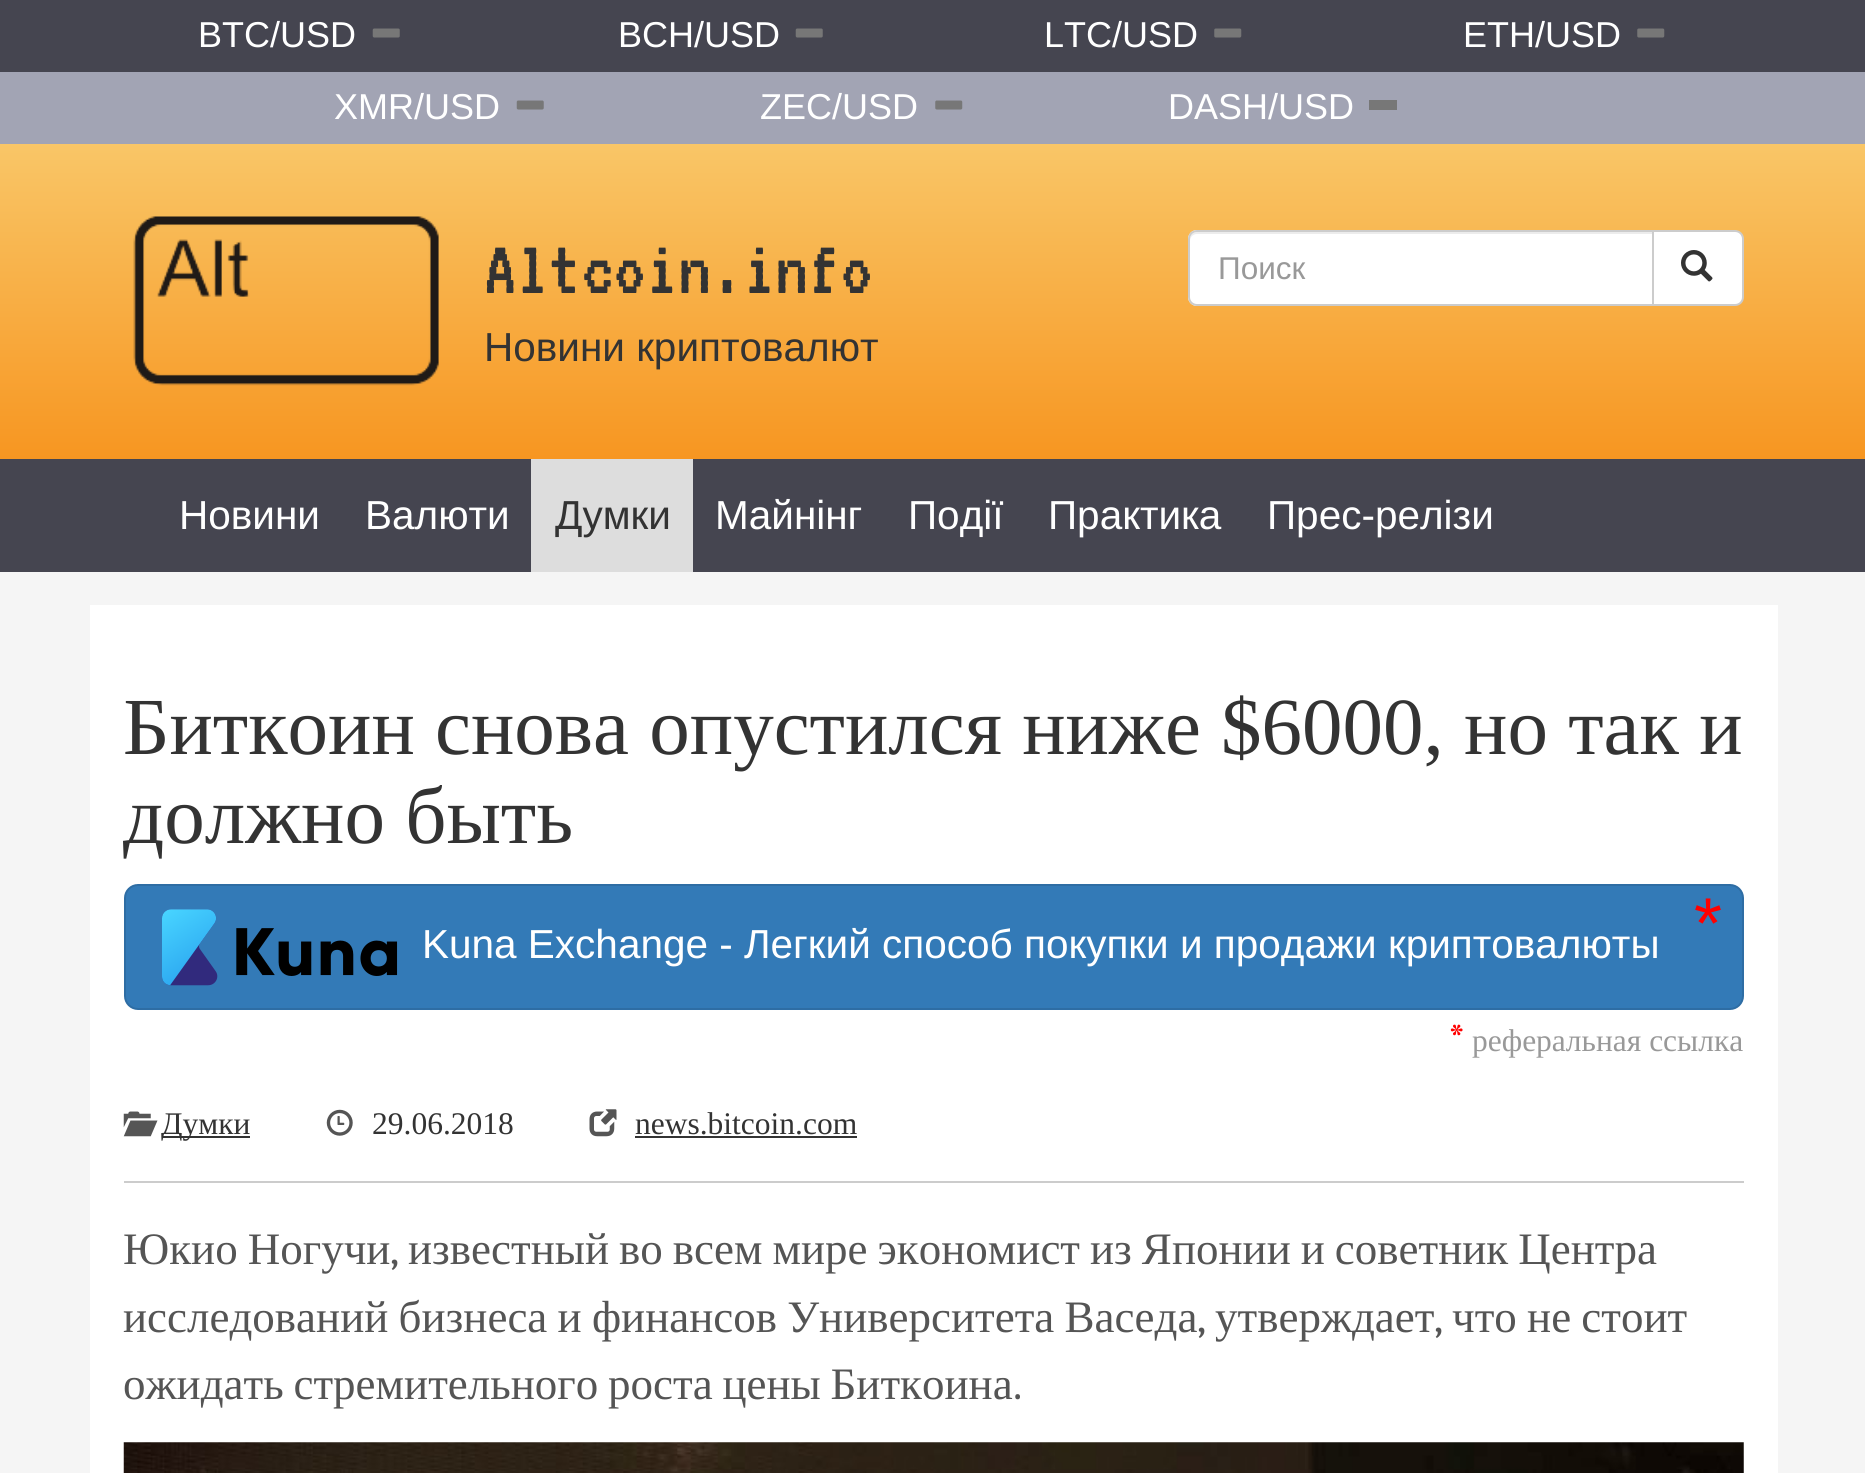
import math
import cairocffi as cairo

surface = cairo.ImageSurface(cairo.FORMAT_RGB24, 1865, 1473)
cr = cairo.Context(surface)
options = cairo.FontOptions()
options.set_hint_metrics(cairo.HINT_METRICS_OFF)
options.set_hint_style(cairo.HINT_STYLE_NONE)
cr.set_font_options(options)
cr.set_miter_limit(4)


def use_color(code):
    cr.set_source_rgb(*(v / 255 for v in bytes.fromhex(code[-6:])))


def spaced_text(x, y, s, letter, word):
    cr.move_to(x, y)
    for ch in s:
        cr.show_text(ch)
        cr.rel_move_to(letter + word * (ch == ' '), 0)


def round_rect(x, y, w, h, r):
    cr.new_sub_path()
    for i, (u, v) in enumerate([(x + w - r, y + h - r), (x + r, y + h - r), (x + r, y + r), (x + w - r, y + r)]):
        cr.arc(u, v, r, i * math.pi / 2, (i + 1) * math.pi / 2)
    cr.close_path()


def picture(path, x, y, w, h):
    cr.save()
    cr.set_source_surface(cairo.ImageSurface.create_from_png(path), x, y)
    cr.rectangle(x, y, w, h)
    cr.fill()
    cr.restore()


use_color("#f5f5f5")
cr.paint()
use_color("#454550")
cr.rectangle(0, 0, 1865, 72)
cr.fill()
cr.select_font_face("Liberation Sans")
cr.set_font_size(36)
use_color("#ffffff")
cr.move_to(198, 47)
cr.show_text("BTC/USD")
picture("img1.png", 372, 28, 28, 10)
cr.move_to(618, 47)
cr.show_text("BCH/USD")
picture("img1.png", 795, 28, 28, 10)
cr.move_to(1044, 47)
cr.show_text("LTC/USD")
picture("img2.png", 1214, 28, 28, 10)
cr.move_to(1463, 47)
cr.show_text("ETH/USD")
picture("img2.png", 1637, 28, 28, 10)
use_color("#a2a4b4")
cr.rectangle(0, 72, 1865, 72)
cr.fill()
use_color("#ffffff")
cr.move_to(334, 119)
cr.show_text("XMR/USD")
picture("img3.png", 516, 100, 28, 10)
cr.move_to(760, 119)
cr.show_text("ZEC/USD")
picture("img4.png", 935, 100, 28, 10)
cr.move_to(1168, 119)
cr.show_text("DASH/USD")
use_color("#777777")
cr.rectangle(1369, 100, 28, 10)
cr.fill()
gradient = cairo.LinearGradient(933, 144, 933, 459)
gradient.add_color_stop_rgba(0, 0.976, 0.776, 0.404, 1)
gradient.add_color_stop_rgba(1, 0.969, 0.588, 0.129, 1)
cr.set_source(gradient)
cr.rectangle(0, 144, 1865, 315)
cr.fill()
picture("img5.png", 133, 216, 306, 170)
cr.select_font_face("VT323")
cr.set_font_size(81)
use_color("#333333")
cr.move_to(484, 293)
cr.show_text("Altcoin.info")
cr.select_font_face("Liberation Sans")
cr.set_font_size(40.5)
cr.move_to(484, 361)
cr.show_text("Новини криптовалют")
use_color("#ffffff")
cr.new_path()
cr.move_to(1197, 230)
cr.line_to(1654, 230)
cr.line_to(1654, 306)
cr.line_to(1197, 306)
cr.curve_to(1192, 306, 1188, 302, 1188, 297)
cr.line_to(1188, 239)
cr.curve_to(1188, 234, 1192, 230, 1197, 230)
cr.close_path()
cr.fill()
use_color("#ececec")
cr.new_path()
cr.move_to(1197, 234)
cr.line_to(1652, 234)
cr.line_to(1652, 232)
cr.line_to(1197, 232)
cr.curve_to(1193, 232, 1190, 235, 1190, 239)
cr.line_to(1190, 241)
cr.curve_to(1190, 237, 1193, 234, 1197, 234)
cr.close_path()
cr.fill()
cr.new_path()
cr.move_to(1197, 231)
cr.line_to(1653, 231)
cr.line_to(1653, 305)
cr.line_to(1197, 305)
cr.curve_to(1192.5, 305, 1189, 301.5, 1189, 297)
cr.line_to(1189, 239)
cr.curve_to(1189, 234.5, 1192.5, 231, 1197, 231)
cr.close_path()
use_color("#cccccc")
cr.stroke()
cr.set_font_size(31.5)
use_color("#999999")
cr.move_to(1218, 279)
cr.show_text("Поиск")
use_color("#ffffff")
cr.new_path()
cr.move_to(1653, 231)
cr.line_to(1735, 231)
cr.curve_to(1739.5, 231, 1743, 234.5, 1743, 239)
cr.line_to(1743, 297)
cr.curve_to(1743, 301.5, 1739.5, 305, 1735, 305)
cr.line_to(1653, 305)
cr.close_path()
cr.fill_preserve()
use_color("#cccccc")
cr.stroke()
picture("img6.png", 1681, 250, 32, 32)
use_color("#454550")
cr.rectangle(0, 459, 1865, 113)
cr.fill()
cr.set_font_size(40.5)
use_color("#ffffff")
cr.move_to(179, 529)
cr.show_text("Новини")
cr.move_to(365, 529)
cr.show_text("Валюти")
use_color("#dddddd")
cr.rectangle(531, 459, 162, 113)
cr.fill()
use_color("#333333")
cr.move_to(555, 529)
cr.show_text("Думки")
use_color("#ffffff")
cr.move_to(715, 529)
cr.show_text("Майнінг")
cr.move_to(908, 529)
cr.show_text("Події")
cr.move_to(1048, 529)
cr.show_text("Практика")
cr.move_to(1267, 529)
cr.show_text("Прес-релізи")
cr.rectangle(90, 605, 1688, 868)
cr.fill()
cr.select_font_face("Liberation Serif")
cr.set_font_size(81)
use_color("#333333")
cr.move_to(123, 754)
cr.show_text("Биткоин снова опустился ниже $6000, но так и")
cr.move_to(123, 843)
cr.show_text("должно быть")
use_color("#337ab7")
round_rect(125, 885, 1618, 124, 13)
cr.fill_preserve()
use_color("#2e6da4")
cr.stroke()
picture("img7.png", 162, 909, 236, 77)
cr.select_font_face("Liberation Sans")
cr.set_font_size(40.5)
use_color("#ffffff")
cr.move_to(422, 958)
cr.show_text("Kuna Exchange - Легкий способ покупки и продажи криптовалюты")
cr.set_font_size(72)
use_color("#ff0000")
cr.move_to(1694, 948)
cr.show_text("*")
cr.select_font_face("Caladea")
cr.set_font_size(40.5)
cr.move_to(1448, 1051)
cr.show_text("*")
cr.select_font_face("Liberation Serif")
cr.set_font_size(31.5)
use_color("#999999")
cr.move_to(1472, 1051)
cr.show_text("реферальная ссылка")
use_color("#cccccc")
cr.rectangle(124, 1181, 1620, 2)
cr.fill()
picture("img8.png", 123, 1111, 35, 26)
use_color("#333333")
cr.rectangle(162, 1136, 88, 2)
cr.fill()
cr.move_to(161, 1134)
cr.show_text("Думки")
picture("img9.png", 326, 1109, 27, 27)
cr.move_to(372, 1134)
cr.show_text("29.06.2018")
picture("img10.png", 589, 1109, 28, 28)
cr.move_to(635, 1134)
cr.show_text("news.bitcoin.com")
cr.rectangle(635, 1136, 222, 2)
cr.fill()
cr.set_font_size(45)
use_color("#555555")
spaced_text(123, 1264, "Юкио Ногучи", 0, -1.25)
cr.select_font_face("Caladea")
cr.move_to(390, 1264)
cr.show_text(",")
cr.select_font_face("Liberation Serif")
spaced_text(408, 1264, "известный во всем мире экономист из Японии и советник Центра", 0, -1.25)
spaced_text(123, 1332, "исследований бизнеса и финансов Университета Васеда", 0, -1)
cr.select_font_face("Caladea")
cr.move_to(1197, 1332)
cr.show_text(",")
cr.select_font_face("Liberation Serif")
cr.move_to(1215, 1332)
cr.show_text("утверждает")
cr.select_font_face("Caladea")
cr.move_to(1434, 1332)
cr.show_text(",")
cr.select_font_face("Liberation Serif")
spaced_text(1452, 1332, "что не стоит", 0, -1)
spaced_text(123, 1399, "ожидать стремительного роста цены Биткоина", 0, -1.5)
cr.select_font_face("Caladea")
cr.move_to(1013, 1399)
cr.show_text(".")
picture("img11.png", 123, 1442, 1621, 31)
surface.write_to_png("result.png")
